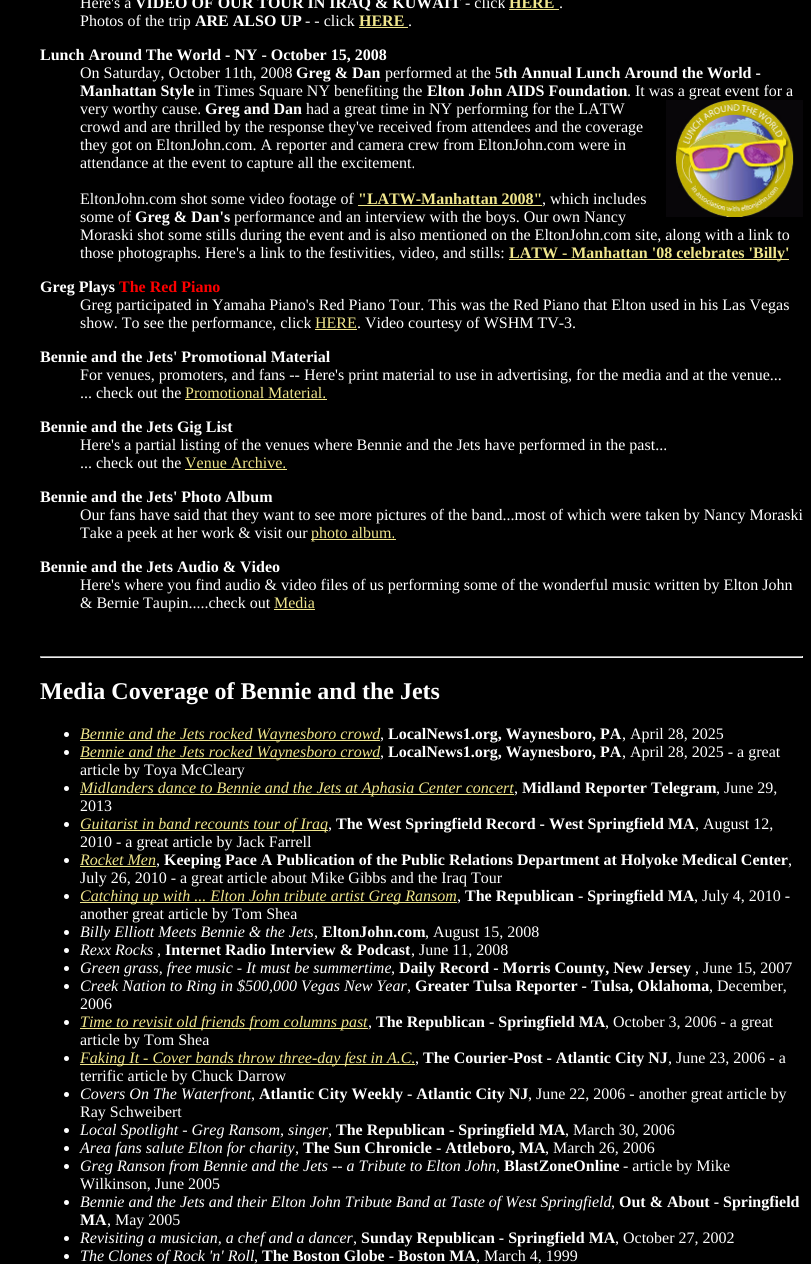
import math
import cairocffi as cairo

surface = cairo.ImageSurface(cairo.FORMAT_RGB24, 811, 1264)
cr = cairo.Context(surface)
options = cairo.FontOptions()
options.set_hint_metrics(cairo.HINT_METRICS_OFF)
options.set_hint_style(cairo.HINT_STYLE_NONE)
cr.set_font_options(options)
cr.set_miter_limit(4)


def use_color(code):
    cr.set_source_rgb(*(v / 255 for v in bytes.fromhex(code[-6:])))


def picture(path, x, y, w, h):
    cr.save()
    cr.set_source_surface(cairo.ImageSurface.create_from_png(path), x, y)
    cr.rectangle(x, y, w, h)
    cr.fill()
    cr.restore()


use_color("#000000")
cr.paint()
cr.select_font_face("Liberation Serif")
cr.set_font_size(16)
use_color("#ffffff")
cr.move_to(80, 8)
cr.show_text("Here's a")
cr.select_font_face("Liberation Serif", cairo.FONT_SLANT_NORMAL, cairo.FONT_WEIGHT_BOLD)
cr.move_to(135, 8)
cr.show_text("VIDEO OF OUR TOUR IN IRAQ & KUWAIT")
cr.select_font_face("Liberation Serif")
cr.move_to(465, 8)
cr.show_text("- click")
cr.select_font_face("Liberation Serif", cairo.FONT_SLANT_NORMAL, cairo.FONT_WEIGHT_BOLD)
use_color("#f0e68c")
cr.move_to(509, 8)
cr.show_text("HERE")
cr.rectangle(509, 9, 50, 1)
cr.fill()
cr.select_font_face("Liberation Serif")
use_color("#ffffff")
cr.move_to(559, 8)
cr.show_text(".")
cr.move_to(80, 26)
cr.show_text("Photos of the trip")
cr.select_font_face("Liberation Serif", cairo.FONT_SLANT_NORMAL, cairo.FONT_WEIGHT_BOLD)
cr.move_to(195, 26)
cr.show_text("ARE ALSO UP")
cr.select_font_face("Liberation Serif")
cr.move_to(305, 26)
cr.show_text("- - click")
cr.select_font_face("Liberation Serif", cairo.FONT_SLANT_NORMAL, cairo.FONT_WEIGHT_BOLD)
use_color("#f0e68c")
cr.move_to(359, 26)
cr.show_text("HERE")
cr.rectangle(359, 27, 49, 1)
cr.fill()
cr.select_font_face("Liberation Serif")
use_color("#ffffff")
cr.move_to(408, 26)
cr.show_text(".")
cr.select_font_face("Liberation Serif", cairo.FONT_SLANT_NORMAL, cairo.FONT_WEIGHT_BOLD)
cr.move_to(40, 60)
cr.show_text("Lunch Around The World - NY - October 15, 2008")
cr.select_font_face("Liberation Serif")
cr.move_to(80, 78)
cr.show_text("On Saturday, October 11th, 2008")
cr.select_font_face("Liberation Serif", cairo.FONT_SLANT_NORMAL, cairo.FONT_WEIGHT_BOLD)
cr.move_to(296, 78)
cr.show_text("Greg & Dan")
cr.select_font_face("Liberation Serif")
cr.move_to(385, 78)
cr.show_text("performed at the")
cr.select_font_face("Liberation Serif", cairo.FONT_SLANT_NORMAL, cairo.FONT_WEIGHT_BOLD)
cr.move_to(495, 78)
cr.show_text("5th Annual Lunch Around the World -")
cr.move_to(80, 96)
cr.show_text("Manhattan Style")
cr.select_font_face("Liberation Serif")
cr.move_to(198, 96)
cr.show_text("in Times Square NY benefiting the")
cr.select_font_face("Liberation Serif", cairo.FONT_SLANT_NORMAL, cairo.FONT_WEIGHT_BOLD)
cr.move_to(427, 96)
cr.show_text("Elton John AIDS Foundation")
cr.select_font_face("Liberation Serif")
cr.move_to(627, 96)
cr.show_text(". It was a great event for a")
cr.move_to(80, 114)
cr.show_text("very worthy cause.")
cr.select_font_face("Liberation Serif", cairo.FONT_SLANT_NORMAL, cairo.FONT_WEIGHT_BOLD)
cr.move_to(205, 114)
cr.show_text("Greg and Dan")
cr.select_font_face("Liberation Serif")
cr.move_to(306, 114)
cr.show_text("had a great time in NY performing for the LATW")
picture("img1.png", 666, 100, 137, 117)
cr.move_to(80, 132)
cr.show_text("crowd and are thrilled by the response they've received from attendees and the coverage")
cr.move_to(80, 150)
cr.show_text("they got on EltonJohn.com. A reporter and camera crew from EltonJohn.com were in")
cr.move_to(80, 168)
cr.show_text("attendance at the event to capture all the excitement.")
cr.move_to(80, 204)
cr.show_text("EltonJohn.com shot some video footage of")
cr.select_font_face("Liberation Serif", cairo.FONT_SLANT_NORMAL, cairo.FONT_WEIGHT_BOLD)
use_color("#f0e68c")
cr.move_to(358, 204)
cr.show_text("\"LATW-Manhattan 2008\"")
cr.rectangle(358, 205, 184, 1)
cr.fill()
cr.select_font_face("Liberation Serif")
use_color("#ffffff")
cr.move_to(542, 204)
cr.show_text(", which includes")
cr.move_to(80, 222)
cr.show_text("some of")
cr.select_font_face("Liberation Serif", cairo.FONT_SLANT_NORMAL, cairo.FONT_WEIGHT_BOLD)
cr.move_to(135, 222)
cr.show_text("Greg & Dan's")
cr.select_font_face("Liberation Serif")
cr.move_to(234, 222)
cr.show_text("performance and an interview with the boys. Our own Nancy")
cr.move_to(80, 240)
cr.show_text("Moraski shot some stills during the event and is also mentioned on the EltonJohn.com site, along with a link to")
cr.move_to(80, 258)
cr.show_text("those photographs. Here's a link to the festivities, video, and stills:")
use_color("#f0e68c")
cr.rectangle(509, 259, 280, 1)
cr.fill()
cr.select_font_face("Liberation Serif", cairo.FONT_SLANT_NORMAL, cairo.FONT_WEIGHT_BOLD)
cr.move_to(509, 258)
cr.show_text("LATW - Manhattan '08 celebrates 'Billy'")
use_color("#ffffff")
cr.move_to(40, 292)
cr.show_text("Greg Plays")
use_color("#ff0000")
cr.move_to(119, 292)
cr.show_text("The Red Piano")
cr.select_font_face("Liberation Serif")
use_color("#ffffff")
cr.move_to(80, 310)
cr.show_text("Greg participated in Yamaha Piano's Red Piano Tour. This was the Red Piano that Elton used in his Las Vegas")
cr.move_to(80, 328)
cr.show_text("show. To see the performance, click")
use_color("#f0e68c")
cr.move_to(315, 328)
cr.show_text("HERE")
cr.rectangle(315, 329, 42, 1)
cr.fill()
use_color("#ffffff")
cr.move_to(357, 328)
cr.show_text(". Video courtesy of WSHM TV-3.")
cr.select_font_face("Liberation Serif", cairo.FONT_SLANT_NORMAL, cairo.FONT_WEIGHT_BOLD)
cr.move_to(40, 362)
cr.show_text("Bennie and the Jets' Promotional Material")
cr.select_font_face("Liberation Serif")
cr.move_to(80, 380)
cr.show_text("For venues, promoters, and fans -- Here's print material to use in advertising, for the media and at the venue...")
cr.move_to(80, 398)
cr.show_text("... check out the")
use_color("#f0e68c")
cr.move_to(185, 398)
cr.show_text("Promotional Material.")
cr.rectangle(185, 399, 142, 1)
cr.fill()
cr.select_font_face("Liberation Serif", cairo.FONT_SLANT_NORMAL, cairo.FONT_WEIGHT_BOLD)
use_color("#ffffff")
cr.move_to(40, 432)
cr.show_text("Bennie and the Jets Gig List")
cr.select_font_face("Liberation Serif")
cr.move_to(80, 450)
cr.show_text("Here's a partial listing of the venues where Bennie and the Jets have performed in the past...")
cr.move_to(80, 468)
cr.show_text("... check out the")
use_color("#f0e68c")
cr.move_to(185, 468)
cr.show_text("Venue Archive.")
cr.rectangle(185, 469, 102, 1)
cr.fill()
cr.select_font_face("Liberation Serif", cairo.FONT_SLANT_NORMAL, cairo.FONT_WEIGHT_BOLD)
use_color("#ffffff")
cr.move_to(40, 502)
cr.show_text("Bennie and the Jets' Photo Album")
cr.select_font_face("Liberation Serif")
cr.move_to(80, 520)
cr.show_text("Our fans have said that they want to see more pictures of the band...most of which were taken by Nancy Moraski")
cr.move_to(80, 538)
cr.show_text("Take a peek at her work & visit our")
use_color("#f0e68c")
cr.rectangle(311, 539, 85, 1)
cr.fill()
cr.move_to(311, 538)
cr.show_text("photo album.")
cr.select_font_face("Liberation Serif", cairo.FONT_SLANT_NORMAL, cairo.FONT_WEIGHT_BOLD)
use_color("#ffffff")
cr.move_to(40, 572)
cr.show_text("Bennie and the Jets Audio & Video")
cr.select_font_face("Liberation Serif")
cr.move_to(80, 590)
cr.show_text("Here's where you find audio & video files of us performing some of the wonderful music written by Elton John")
cr.move_to(80, 608)
cr.show_text("& Bernie Taupin.....check out")
use_color("#f0e68c")
cr.move_to(274, 608)
cr.show_text("Media")
cr.rectangle(274, 609, 41, 1)
cr.fill()
use_color("#9f9f9f")
cr.rectangle(40, 656, 763, 1)
cr.fill()
use_color("#eeeeee")
cr.rectangle(802, 656, 1, 2)
cr.fill()
cr.rectangle(40, 657, 763, 1)
cr.fill()
use_color("#9f9f9f")
cr.rectangle(40, 656, 1, 2)
cr.fill()
cr.select_font_face("Liberation Serif", cairo.FONT_SLANT_NORMAL, cairo.FONT_WEIGHT_BOLD)
cr.set_font_size(24)
use_color("#ffffff")
cr.move_to(40, 699)
cr.show_text("Media Coverage of Bennie and the Jets")
cr.new_path()
cr.arc(66.5, 734.5, 2.5, 0, 2 * math.pi)
cr.fill()
use_color("#f0e68c")
cr.rectangle(80, 740, 300, 1)
cr.fill()
cr.select_font_face("Liberation Serif", cairo.FONT_SLANT_ITALIC)
cr.set_font_size(16)
cr.move_to(80, 739)
cr.show_text("Bennie and the Jets rocked Waynesboro crowd")
cr.select_font_face("Liberation Serif", cairo.FONT_SLANT_NORMAL, cairo.FONT_WEIGHT_BOLD)
use_color("#ffffff")
cr.move_to(388, 739)
cr.show_text("LocalNews1.org, Waynesboro, PA")
cr.select_font_face("Liberation Serif")
cr.move_to(622, 739)
cr.show_text(", April 28, 2025")
cr.move_to(380, 739)
cr.show_text(",")
cr.new_path()
cr.arc(66.5, 752.5, 2.5, 0, 2 * math.pi)
cr.fill()
use_color("#f0e68c")
cr.rectangle(80, 758, 300, 1)
cr.fill()
cr.select_font_face("Liberation Serif", cairo.FONT_SLANT_ITALIC)
cr.move_to(80, 757)
cr.show_text("Bennie and the Jets rocked Waynesboro crowd")
cr.select_font_face("Liberation Serif", cairo.FONT_SLANT_NORMAL, cairo.FONT_WEIGHT_BOLD)
use_color("#ffffff")
cr.move_to(388, 757)
cr.show_text("LocalNews1.org, Waynesboro, PA")
cr.select_font_face("Liberation Serif")
cr.move_to(622, 757)
cr.show_text(", April 28, 2025 - a great")
cr.move_to(380, 757)
cr.show_text(",")
cr.move_to(80, 775)
cr.show_text("article by Toya McCleary")
cr.new_path()
cr.arc(66.5, 788.5, 2.5, 0, 2 * math.pi)
cr.fill()
use_color("#f0e68c")
cr.rectangle(80, 794, 434, 1)
cr.fill()
cr.select_font_face("Liberation Serif", cairo.FONT_SLANT_ITALIC)
cr.move_to(80, 793)
cr.show_text("Midlanders dance to Bennie and the Jets at Aphasia Center concert")
cr.select_font_face("Liberation Serif", cairo.FONT_SLANT_NORMAL, cairo.FONT_WEIGHT_BOLD)
use_color("#ffffff")
cr.move_to(522, 793)
cr.show_text("Midland Reporter Telegram")
cr.select_font_face("Liberation Serif")
cr.move_to(716, 793)
cr.show_text(", June 29,")
cr.move_to(514, 793)
cr.show_text(",")
cr.move_to(80, 811)
cr.show_text("2013")
cr.new_path()
cr.arc(66.5, 824.5, 2.5, 0, 2 * math.pi)
cr.fill()
use_color("#f0e68c")
cr.rectangle(80, 830, 248, 1)
cr.fill()
cr.select_font_face("Liberation Serif", cairo.FONT_SLANT_ITALIC)
cr.move_to(80, 829)
cr.show_text("Guitarist in band recounts tour of Iraq")
cr.select_font_face("Liberation Serif", cairo.FONT_SLANT_NORMAL, cairo.FONT_WEIGHT_BOLD)
use_color("#ffffff")
cr.move_to(336, 829)
cr.show_text("The West Springfield Record - West Springfield MA")
cr.select_font_face("Liberation Serif")
cr.move_to(695, 829)
cr.show_text(", August 12,")
cr.move_to(328, 829)
cr.show_text(",")
cr.move_to(80, 847)
cr.show_text("2010 - a great article by Jack Farrell")
cr.new_path()
cr.arc(66.5, 860.5, 2.5, 0, 2 * math.pi)
cr.fill()
cr.select_font_face("Liberation Serif", cairo.FONT_SLANT_ITALIC)
use_color("#f0e68c")
cr.move_to(80, 865)
cr.show_text("Rocket Men")
cr.rectangle(80, 866, 76, 1)
cr.fill()
cr.select_font_face("Liberation Serif", cairo.FONT_SLANT_NORMAL, cairo.FONT_WEIGHT_BOLD)
use_color("#ffffff")
cr.move_to(164, 865)
cr.show_text("Keeping Pace A Publication of the Public Relations Department at Holyoke Medical Center")
cr.select_font_face("Liberation Serif")
cr.move_to(156, 865)
cr.show_text(",")
cr.move_to(788, 865)
cr.show_text(",")
cr.move_to(80, 883)
cr.show_text("July 26, 2010 - a great article about Mike Gibbs and the Iraq Tour")
cr.new_path()
cr.arc(66.5, 896.5, 2.5, 0, 2 * math.pi)
cr.fill()
use_color("#f0e68c")
cr.rectangle(80, 902, 377, 1)
cr.fill()
cr.select_font_face("Liberation Serif", cairo.FONT_SLANT_ITALIC)
cr.move_to(80, 901)
cr.show_text("Catching up with ... Elton John tribute artist Greg Ransom")
cr.select_font_face("Liberation Serif", cairo.FONT_SLANT_NORMAL, cairo.FONT_WEIGHT_BOLD)
use_color("#ffffff")
cr.move_to(465, 901)
cr.show_text("The Republican - Springfield MA")
cr.select_font_face("Liberation Serif")
cr.move_to(694, 901)
cr.show_text(", July 4, 2010 -")
cr.move_to(457, 901)
cr.show_text(",")
cr.move_to(80, 919)
cr.show_text("another great article by Tom Shea")
cr.new_path()
cr.arc(66.5, 932.5, 2.5, 0, 2 * math.pi)
cr.fill()
cr.select_font_face("Liberation Serif", cairo.FONT_SLANT_ITALIC)
cr.move_to(80, 937)
cr.show_text("Billy Elliott Meets Bennie & the Jets")
cr.select_font_face("Liberation Serif", cairo.FONT_SLANT_NORMAL, cairo.FONT_WEIGHT_BOLD)
cr.move_to(322, 937)
cr.show_text("EltonJohn.com")
cr.select_font_face("Liberation Serif")
cr.move_to(425, 937)
cr.show_text(", August 15, 2008")
cr.move_to(314, 937)
cr.show_text(",")
cr.new_path()
cr.arc(66.5, 950.5, 2.5, 0, 2 * math.pi)
cr.fill()
cr.select_font_face("Liberation Serif", cairo.FONT_SLANT_ITALIC)
cr.move_to(80, 955)
cr.show_text("Rexx Rocks")
cr.select_font_face("Liberation Serif", cairo.FONT_SLANT_NORMAL, cairo.FONT_WEIGHT_BOLD)
cr.move_to(165, 955)
cr.show_text("Internet Radio Interview & Podcast")
cr.select_font_face("Liberation Serif")
cr.move_to(411, 955)
cr.show_text(", June 11, 2008")
cr.move_to(157, 955)
cr.show_text(",")
cr.new_path()
cr.arc(66.5, 968.5, 2.5, 0, 2 * math.pi)
cr.fill()
cr.select_font_face("Liberation Serif", cairo.FONT_SLANT_ITALIC)
cr.move_to(80, 973)
cr.show_text("Green grass, free music - It must be summertime")
cr.select_font_face("Liberation Serif", cairo.FONT_SLANT_NORMAL, cairo.FONT_WEIGHT_BOLD)
cr.move_to(399, 973)
cr.show_text("Daily Record - Morris County, New Jersey")
cr.select_font_face("Liberation Serif")
cr.move_to(695, 973)
cr.show_text(", June 15, 2007")
cr.move_to(391, 973)
cr.show_text(",")
cr.new_path()
cr.arc(66.5, 986.5, 2.5, 0, 2 * math.pi)
cr.fill()
cr.select_font_face("Liberation Serif", cairo.FONT_SLANT_ITALIC)
cr.move_to(80, 991)
cr.show_text("Creek Nation to Ring in $500,000 Vegas New Year")
cr.select_font_face("Liberation Serif", cairo.FONT_SLANT_NORMAL, cairo.FONT_WEIGHT_BOLD)
cr.move_to(415, 991)
cr.show_text("Greater Tulsa Reporter - Tulsa, Oklahoma")
cr.select_font_face("Liberation Serif")
cr.move_to(709, 991)
cr.show_text(", December,")
cr.move_to(407, 991)
cr.show_text(",")
cr.move_to(80, 1009)
cr.show_text("2006")
cr.new_path()
cr.arc(66.5, 1022.5, 2.5, 0, 2 * math.pi)
cr.fill()
use_color("#f0e68c")
cr.rectangle(80, 1028, 288, 1)
cr.fill()
cr.select_font_face("Liberation Serif", cairo.FONT_SLANT_ITALIC)
cr.move_to(80, 1027)
cr.show_text("Time to revisit old friends from columns past")
cr.select_font_face("Liberation Serif", cairo.FONT_SLANT_NORMAL, cairo.FONT_WEIGHT_BOLD)
use_color("#ffffff")
cr.move_to(376, 1027)
cr.show_text("The Republican - Springfield MA")
cr.select_font_face("Liberation Serif")
cr.move_to(605, 1027)
cr.show_text(", October 3, 2006 - a great")
cr.move_to(368, 1027)
cr.show_text(",")
cr.move_to(80, 1045)
cr.show_text("article by Tom Shea")
cr.new_path()
cr.arc(66.5, 1058.5, 2.5, 0, 2 * math.pi)
cr.fill()
use_color("#f0e68c")
cr.rectangle(80, 1064, 335, 1)
cr.fill()
cr.select_font_face("Liberation Serif", cairo.FONT_SLANT_ITALIC)
cr.move_to(80, 1063)
cr.show_text("Faking It - Cover bands throw three-day fest in A.C.")
cr.select_font_face("Liberation Serif", cairo.FONT_SLANT_NORMAL, cairo.FONT_WEIGHT_BOLD)
use_color("#ffffff")
cr.move_to(423, 1063)
cr.show_text("The Courier-Post - Atlantic City NJ")
cr.select_font_face("Liberation Serif")
cr.move_to(668, 1063)
cr.show_text(", June 23, 2006 - a")
cr.move_to(415, 1063)
cr.show_text(",")
cr.move_to(80, 1081)
cr.show_text("terrific article by Chuck Darrow")
cr.new_path()
cr.arc(66.5, 1094.5, 2.5, 0, 2 * math.pi)
cr.fill()
cr.select_font_face("Liberation Serif", cairo.FONT_SLANT_ITALIC)
cr.move_to(80, 1099)
cr.show_text("Covers On The Waterfront")
cr.select_font_face("Liberation Serif", cairo.FONT_SLANT_NORMAL, cairo.FONT_WEIGHT_BOLD)
cr.move_to(259, 1099)
cr.show_text("Atlantic City Weekly - Atlantic City NJ")
cr.select_font_face("Liberation Serif")
cr.move_to(528, 1099)
cr.show_text(", June 22, 2006 - another great article by")
cr.move_to(251, 1099)
cr.show_text(",")
cr.move_to(80, 1117)
cr.show_text("Ray Schweibert")
cr.new_path()
cr.arc(66.5, 1130.5, 2.5, 0, 2 * math.pi)
cr.fill()
cr.select_font_face("Liberation Serif", cairo.FONT_SLANT_ITALIC)
cr.move_to(80, 1135)
cr.show_text("Local Spotlight - Greg Ransom, singer")
cr.select_font_face("Liberation Serif", cairo.FONT_SLANT_NORMAL, cairo.FONT_WEIGHT_BOLD)
cr.move_to(336, 1135)
cr.show_text("The Republican - Springfield MA")
cr.select_font_face("Liberation Serif")
cr.move_to(565, 1135)
cr.show_text(", March 30, 2006")
cr.move_to(328, 1135)
cr.show_text(",")
cr.new_path()
cr.arc(66.5, 1148.5, 2.5, 0, 2 * math.pi)
cr.fill()
cr.select_font_face("Liberation Serif", cairo.FONT_SLANT_ITALIC)
cr.move_to(80, 1153)
cr.show_text("Area fans salute Elton for charity")
cr.select_font_face("Liberation Serif", cairo.FONT_SLANT_NORMAL, cairo.FONT_WEIGHT_BOLD)
cr.move_to(303, 1153)
cr.show_text("The Sun Chronicle - Attleboro, MA")
cr.select_font_face("Liberation Serif")
cr.move_to(545, 1153)
cr.show_text(", March 26, 2006")
cr.move_to(295, 1153)
cr.show_text(",")
cr.new_path()
cr.arc(66.5, 1166.5, 2.5, 0, 2 * math.pi)
cr.fill()
cr.select_font_face("Liberation Serif", cairo.FONT_SLANT_ITALIC)
cr.move_to(80, 1171)
cr.show_text("Greg Ranson from Bennie and the Jets -- a Tribute to Elton John,")
cr.select_font_face("Liberation Serif", cairo.FONT_SLANT_NORMAL, cairo.FONT_WEIGHT_BOLD)
cr.move_to(504, 1171)
cr.show_text("BlastZoneOnline")
cr.select_font_face("Liberation Serif")
cr.move_to(623, 1171)
cr.show_text("- article by Mike")
cr.move_to(80, 1189)
cr.show_text("Wilkinson, June 2005")
cr.new_path()
cr.arc(66.5, 1202.5, 2.5, 0, 2 * math.pi)
cr.fill()
cr.select_font_face("Liberation Serif", cairo.FONT_SLANT_ITALIC)
cr.move_to(80, 1207)
cr.show_text("Bennie and the Jets and their Elton John Tribute Band at Taste of West Springfield")
cr.select_font_face("Liberation Serif", cairo.FONT_SLANT_NORMAL, cairo.FONT_WEIGHT_BOLD)
cr.move_to(619, 1207)
cr.show_text("Out & About - Springfield")
cr.select_font_face("Liberation Serif")
cr.move_to(611, 1207)
cr.show_text(",")
cr.select_font_face("Liberation Serif", cairo.FONT_SLANT_NORMAL, cairo.FONT_WEIGHT_BOLD)
cr.move_to(80, 1225)
cr.show_text("MA")
cr.select_font_face("Liberation Serif")
cr.move_to(107, 1225)
cr.show_text(", May 2005")
cr.new_path()
cr.arc(66.5, 1238.5, 2.5, 0, 2 * math.pi)
cr.fill()
cr.select_font_face("Liberation Serif", cairo.FONT_SLANT_ITALIC)
cr.move_to(80, 1243)
cr.show_text("Revisiting a musician, a chef and a dancer")
cr.select_font_face("Liberation Serif", cairo.FONT_SLANT_NORMAL, cairo.FONT_WEIGHT_BOLD)
cr.move_to(361, 1243)
cr.show_text("Sunday Republican - Springfield MA")
cr.select_font_face("Liberation Serif")
cr.move_to(615, 1243)
cr.show_text(", October 27, 2002")
cr.move_to(353, 1243)
cr.show_text(",")
cr.new_path()
cr.arc(66.5, 1256.5, 2.5, 0, 2 * math.pi)
cr.fill()
cr.select_font_face("Liberation Serif", cairo.FONT_SLANT_ITALIC)
cr.move_to(80, 1261)
cr.show_text("The Clones of Rock 'n' Roll")
cr.select_font_face("Liberation Serif", cairo.FONT_SLANT_NORMAL, cairo.FONT_WEIGHT_BOLD)
cr.move_to(262, 1261)
cr.show_text("The Boston Globe - Boston MA")
cr.select_font_face("Liberation Serif")
cr.move_to(476, 1261)
cr.show_text(", March 4, 1999")
cr.move_to(254, 1261)
cr.show_text(",")
surface.write_to_png("result.png")
